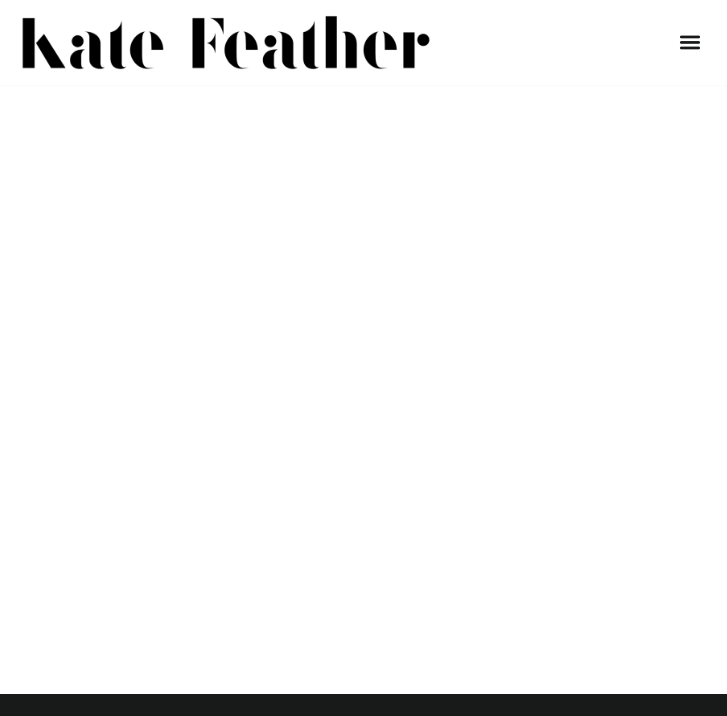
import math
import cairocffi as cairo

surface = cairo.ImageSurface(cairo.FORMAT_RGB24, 727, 716)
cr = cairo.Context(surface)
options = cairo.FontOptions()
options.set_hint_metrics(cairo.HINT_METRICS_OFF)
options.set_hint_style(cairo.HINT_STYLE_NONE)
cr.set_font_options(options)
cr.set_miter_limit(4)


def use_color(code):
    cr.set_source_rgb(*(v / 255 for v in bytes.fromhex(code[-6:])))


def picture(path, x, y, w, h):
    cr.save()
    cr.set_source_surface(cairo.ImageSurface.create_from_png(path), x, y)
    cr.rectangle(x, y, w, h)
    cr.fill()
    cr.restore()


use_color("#ffffff")
cr.paint()
use_color("#fcfbfa")
cr.rectangle(0, 85, 727, 1)
cr.fill()
picture("img1.png", 22, 15, 408, 55)
picture("img2.png", 679, 35, 22, 15)
use_color("#181919")
cr.rectangle(0, 694, 727, 22)
cr.fill()
surface.write_to_png("result.png")
